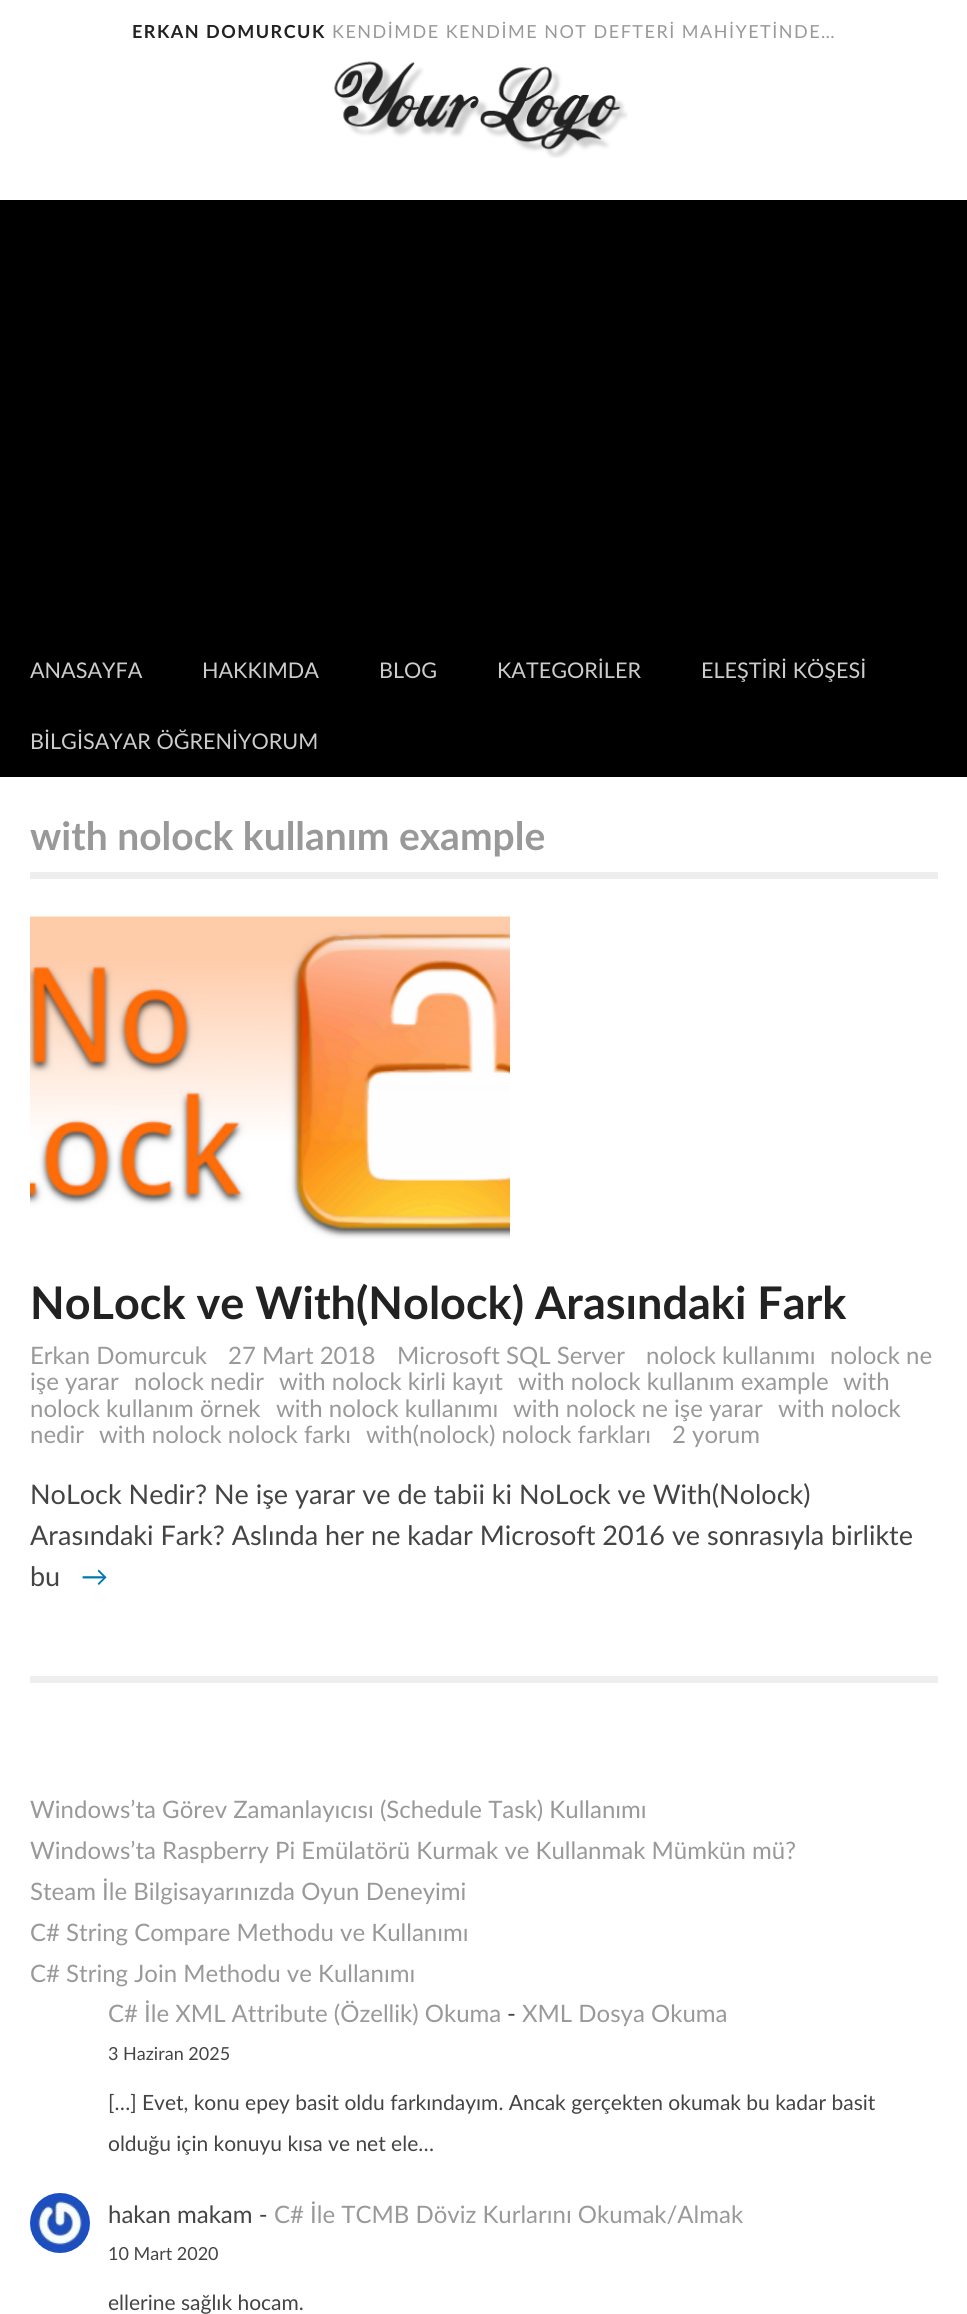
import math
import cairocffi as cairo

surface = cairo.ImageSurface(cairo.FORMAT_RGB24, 967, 2314)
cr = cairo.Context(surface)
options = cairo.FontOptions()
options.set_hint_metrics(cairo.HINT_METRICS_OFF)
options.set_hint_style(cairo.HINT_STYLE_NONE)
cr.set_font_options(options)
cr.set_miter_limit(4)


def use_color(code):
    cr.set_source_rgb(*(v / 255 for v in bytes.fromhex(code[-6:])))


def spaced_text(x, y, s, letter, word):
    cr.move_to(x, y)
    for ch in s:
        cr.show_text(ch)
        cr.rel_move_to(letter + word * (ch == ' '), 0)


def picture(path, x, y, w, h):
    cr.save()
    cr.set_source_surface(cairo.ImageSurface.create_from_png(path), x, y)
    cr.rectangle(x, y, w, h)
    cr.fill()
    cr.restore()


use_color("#ffffff")
cr.paint()
cr.select_font_face("Lato", cairo.FONT_SLANT_NORMAL, cairo.FONT_WEIGHT_BOLD)
cr.set_font_size(18)
use_color("#222222")
spaced_text(132, 38, "ERKAN DOMURCUK", 1.5, 0)
cr.select_font_face("Lato")
use_color("#999999")
spaced_text(332, 38, "KENDİMDE KENDİME NOT DEFTERİ MAHİYETİNDE…", 1.5, 0)
picture("img1.png", 334, 61, 294, 97)
use_color("#000000")
cr.rectangle(0, 200, 967, 577)
cr.fill()
cr.set_font_size(21.6)
use_color("#cccccc")
cr.move_to(30, 678)
cr.show_text("ANASAYFA")
cr.move_to(202, 678)
cr.show_text("HAKKIMDA")
cr.move_to(379, 678)
cr.show_text("BLOG")
cr.move_to(497, 678)
cr.show_text("KATEGORİLER")
cr.move_to(701, 678)
cr.show_text("ELEŞTİRİ KÖŞESİ")
cr.move_to(30, 749)
cr.show_text("BİLGİSAYAR ÖĞRENİYORUM")
use_color("#eeeeee")
cr.rectangle(30, 872, 908, 7)
cr.fill()
cr.select_font_face("Lato", cairo.FONT_SLANT_NORMAL, cairo.FONT_WEIGHT_BOLD)
cr.set_font_size(39)
use_color("#999999")
cr.move_to(30, 850)
cr.show_text("with nolock kullanım example")
use_color("#eeeeee")
cr.rectangle(30, 1676, 908, 7)
cr.fill()
picture("img2.png", 30, 916, 480, 323)
cr.set_font_size(45)
use_color("#222222")
cr.move_to(30, 1319)
cr.show_text("NoLock ve With(Nolock) Arasındaki Fark")
cr.select_font_face("Lato")
cr.set_font_size(24)
use_color("#999999")
cr.move_to(30, 1364)
cr.show_text("Erkan Domurcuk")
cr.move_to(228, 1364)
cr.show_text("27 Mart 2018")
cr.move_to(397, 1364)
cr.show_text("Microsoft SQL Server")
cr.move_to(646, 1364)
cr.show_text("nolock kullanımı")
cr.move_to(830, 1364)
cr.show_text("nolock ne")
cr.move_to(30, 1390)
cr.show_text("işe yarar")
cr.move_to(134, 1390)
cr.show_text("nolock nedir")
cr.move_to(279, 1390)
cr.show_text("with nolock kirli kayıt")
cr.move_to(518, 1390)
cr.show_text("with nolock kullanım example")
cr.move_to(843, 1390)
cr.show_text("with")
cr.move_to(30, 1417)
cr.show_text("nolock kullanım örnek")
cr.move_to(276, 1417)
cr.show_text("with nolock kullanımı")
cr.move_to(513, 1417)
cr.show_text("with nolock ne işe yarar")
cr.move_to(778, 1417)
cr.show_text("with nolock")
cr.move_to(30, 1443)
cr.show_text("nedir")
cr.move_to(99, 1443)
cr.show_text("with nolock nolock farkı")
cr.move_to(366, 1443)
cr.show_text("with(nolock) nolock farkları")
cr.move_to(672, 1443)
cr.show_text("2 yorum")
cr.set_font_size(27)
use_color("#444444")
cr.move_to(30, 1504)
cr.show_text("NoLock Nedir? Ne işe yarar ve de tabii ki NoLock ve With(Nolock)")
cr.move_to(30, 1545)
cr.show_text("Arasındaki Fark? Aslında her ne kadar Microsoft 2016 ve sonrasıyla birlikte")
cr.move_to(30, 1586)
cr.show_text("bu")
use_color("#0077aa")
cr.move_to(81, 1586)
cr.show_text("→")
cr.set_font_size(24)
use_color("#999999")
cr.move_to(30, 1818)
cr.show_text("Windows’ta Görev Zamanlayıcısı (Schedule Task) Kullanımı")
cr.move_to(30, 1859)
cr.show_text("Windows’ta Raspberry Pi Emülatörü Kurmak ve Kullanmak Mümkün mü?")
cr.move_to(30, 1900)
cr.show_text("Steam İle Bilgisayarınızda Oyun Deneyimi")
cr.move_to(30, 1941)
cr.show_text("C# String Compare Methodu ve Kullanımı")
cr.move_to(30, 1982)
cr.show_text("C# String Join Methodu ve Kullanımı")
cr.move_to(108, 2022)
cr.show_text("C# İle XML Attribute (Özellik) Okuma")
use_color("#444444")
cr.move_to(507, 2022)
cr.show_text("-")
use_color("#999999")
cr.move_to(522, 2022)
cr.show_text("XML Dosya Okuma")
cr.set_font_size(18)
use_color("#444444")
cr.move_to(108, 2060)
cr.show_text("3 Haziran 2025")
cr.set_font_size(21)
cr.move_to(108, 2110)
cr.show_text("[…] Evet, konu epey basit oldu farkındayım. Ancak gerçekten okumak bu kadar basit")
cr.move_to(108, 2151)
cr.show_text("olduğu için konuyu kısa ve net ele…")
picture("img3.png", 30, 2193, 60, 60)
cr.set_font_size(24)
cr.move_to(108, 2223)
cr.show_text("hakan makam -")
use_color("#999999")
cr.move_to(274, 2223)
cr.show_text("C# İle TCMB Döviz Kurlarını Okumak/Almak")
cr.set_font_size(18)
use_color("#444444")
cr.move_to(108, 2260)
cr.show_text("10 Mart 2020")
cr.set_font_size(21)
cr.move_to(108, 2310)
cr.show_text("ellerine sağlık hocam.")
surface.write_to_png("result.png")
